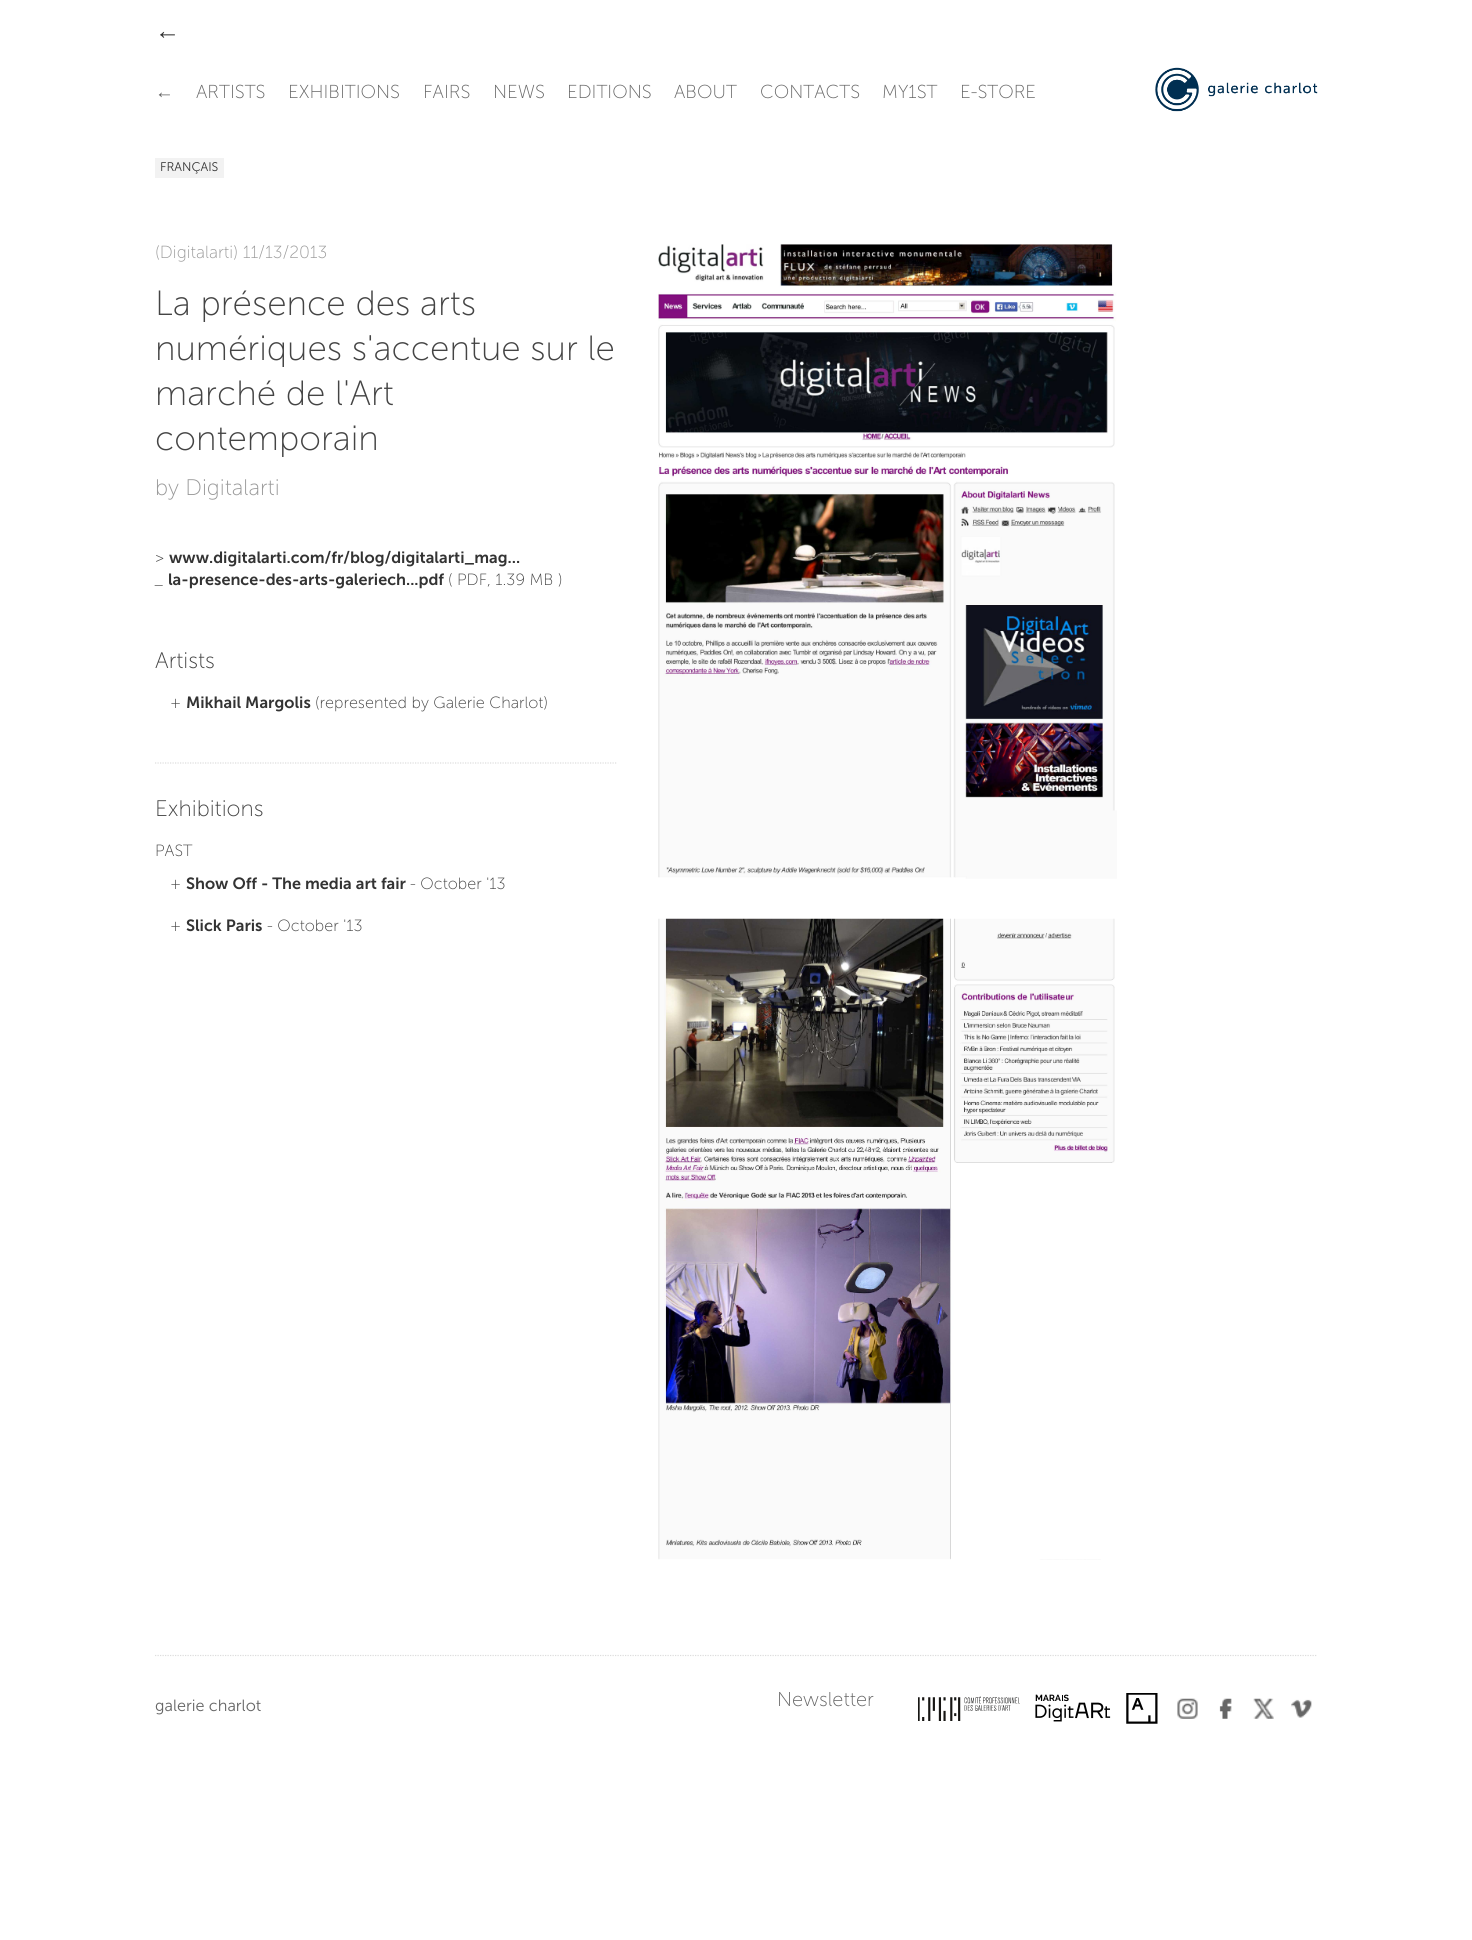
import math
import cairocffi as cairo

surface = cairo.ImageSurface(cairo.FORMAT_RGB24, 1472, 1940)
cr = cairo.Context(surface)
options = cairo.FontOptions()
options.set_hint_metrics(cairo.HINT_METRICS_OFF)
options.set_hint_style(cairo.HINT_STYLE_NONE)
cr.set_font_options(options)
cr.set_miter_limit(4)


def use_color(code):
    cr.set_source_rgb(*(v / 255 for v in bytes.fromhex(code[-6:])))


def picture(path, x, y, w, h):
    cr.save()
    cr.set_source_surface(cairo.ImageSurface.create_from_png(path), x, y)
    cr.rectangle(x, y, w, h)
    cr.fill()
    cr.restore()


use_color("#ffffff")
cr.paint()
cr.select_font_face("Liberation Sans")
cr.set_font_size(25)
use_color("#333333")
cr.move_to(155, 39)
cr.show_text("←")
cr.set_font_size(18.75)
use_color("#666666")
cr.move_to(155, 98)
cr.show_text("←")
cr.select_font_face("Museo Sans Thin")
cr.move_to(196, 98)
cr.show_text("ARTISTS")
cr.move_to(288, 98)
cr.show_text("EXHIBITIONS")
cr.move_to(423, 98)
cr.show_text("FAIRS")
cr.move_to(493, 98)
cr.show_text("NEWS")
cr.move_to(567, 98)
cr.show_text("EDITIONS")
cr.move_to(674, 98)
cr.show_text("ABOUT")
cr.move_to(760, 98)
cr.show_text("CONTACTS")
cr.move_to(882, 98)
cr.show_text("MY1ST")
cr.move_to(960, 98)
cr.show_text("E-STORE")
use_color("#f2f2f2")
cr.rectangle(155, 158, 69, 20)
cr.fill()
cr.select_font_face("Museo Sans Light")
cr.set_font_size(12.5)
use_color("#333333")
cr.move_to(160, 171)
cr.show_text("FRANÇAIS")
picture("img1.png", 1155, 67, 163, 45)
cr.select_font_face("Museo Sans Thin")
cr.set_font_size(17.5)
use_color("#999999")
cr.move_to(155, 258)
cr.show_text("(Digitalarti) 11/13/2013")
cr.set_font_size(35)
use_color("#444444")
cr.move_to(155, 315)
cr.show_text("La présence des arts")
cr.move_to(155, 360)
cr.show_text("numériques s'accentue sur le")
cr.move_to(155, 405)
cr.show_text("marché de l'Art")
cr.move_to(155, 450)
cr.show_text("contemporain")
cr.set_font_size(22.5)
use_color("#999999")
cr.move_to(155, 495)
cr.show_text("by Digitalarti")
cr.set_font_size(16.25)
use_color("#444444")
cr.move_to(155, 563)
cr.show_text(">")
cr.select_font_face("Museo Sans SemiBold")
use_color("#333333")
cr.move_to(169, 563)
cr.show_text("www.digitalarti.com/fr/blog/digitalarti_mag...")
cr.select_font_face("Museo Sans Thin")
use_color("#444444")
cr.move_to(154, 585)
cr.show_text("_")
cr.select_font_face("Museo Sans SemiBold")
use_color("#333333")
cr.move_to(168, 585)
cr.show_text("la-presence-des-arts-galeriech...pdf")
cr.select_font_face("Museo Sans Thin")
use_color("#444444")
cr.move_to(448, 585)
cr.show_text("( PDF, 1.39 MB )")
cr.set_font_size(22.5)
cr.move_to(155, 668)
cr.show_text("Artists")
cr.set_font_size(16.25)
cr.move_to(170, 708)
cr.show_text("+")
cr.select_font_face("Museo Sans SemiBold")
use_color("#333333")
cr.move_to(186, 708)
cr.show_text("Mikhail Margolis")
cr.select_font_face("Museo Sans Thin")
use_color("#444444")
cr.move_to(315, 708)
cr.show_text("(represented by Galerie Charlot)")
cr.new_path()
cr.move_to(155, 763)
cr.line_to(617.5, 763)
use_color("#dddddd")
cr.set_line_width(1.2)
cr.set_dash([1.25, 1.25])
cr.stroke()
cr.set_font_size(22.5)
use_color("#444444")
cr.move_to(155, 816)
cr.show_text("Exhibitions")
cr.set_font_size(16.25)
cr.move_to(155, 856)
cr.show_text("PAST")
cr.move_to(170, 889)
cr.show_text("+")
cr.select_font_face("Museo Sans SemiBold")
use_color("#333333")
cr.move_to(186, 889)
cr.show_text("Show Off - The media art fair")
cr.select_font_face("Museo Sans Thin")
use_color("#444444")
cr.move_to(410, 889)
cr.show_text("- October '13")
cr.move_to(170, 931)
cr.show_text("+")
cr.select_font_face("Museo Sans SemiBold")
use_color("#333333")
cr.move_to(186, 931)
cr.show_text("Slick Paris")
cr.select_font_face("Museo Sans Thin")
use_color("#444444")
cr.move_to(267, 931)
cr.show_text("- October '13")
picture("img2.png", 658, 244, 459, 635)
picture("img3.png", 658, 918, 457, 642)
cr.new_path()
cr.move_to(155, 1655.5)
cr.line_to(1317.5, 1655.5)
use_color("#dddddd")
cr.stroke()
cr.select_font_face("Museo Sans Light")
use_color("#666666")
cr.move_to(155, 1711)
cr.show_text("galerie charlot")
cr.select_font_face("Museo Sans Thin")
cr.set_font_size(20)
cr.move_to(777, 1706)
cr.show_text("Newsletter")
picture("img4.png", 918, 1696, 102, 25)
picture("img5.png", 1035, 1694, 76, 28)
picture("img6.png", 1126, 1693, 32, 31)
picture("img7.png", 1177, 1698, 21, 21)
picture("img8.png", 1219, 1698, 13, 21)
picture("img9.png", 1253, 1698, 21, 21)
picture("img10.png", 1291, 1699, 21, 19)
surface.write_to_png("result.png")
